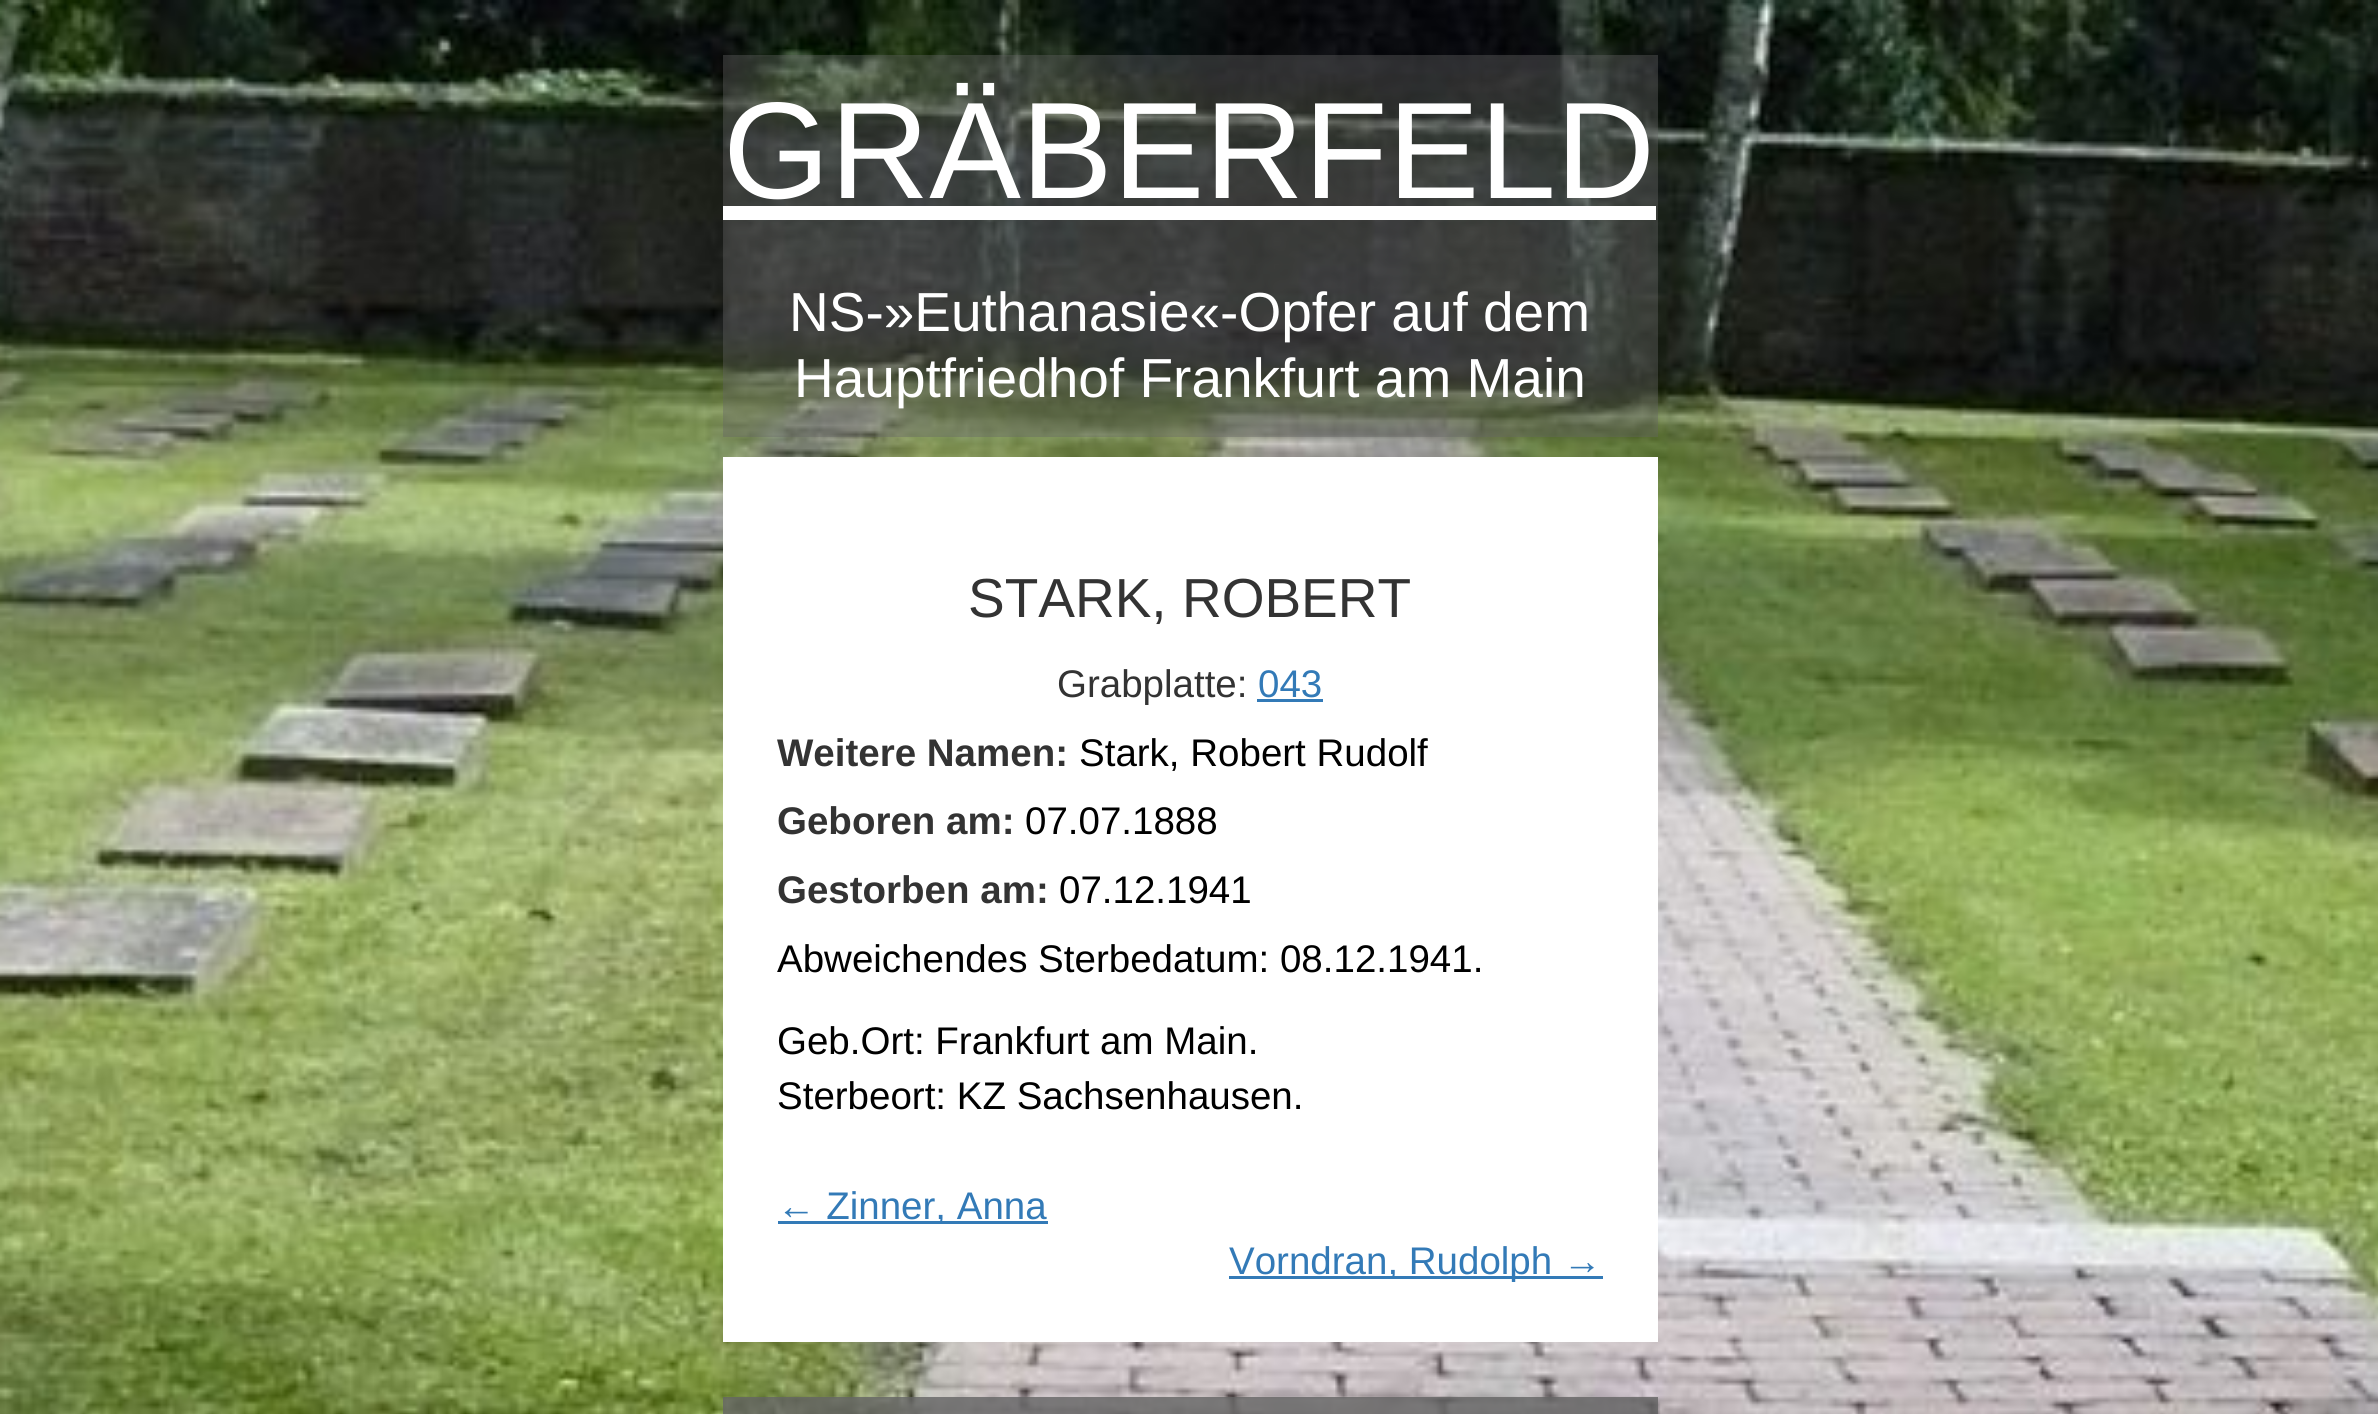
import math
import cairocffi as cairo

surface = cairo.ImageSurface(cairo.FORMAT_RGB24, 2378, 1414)
cr = cairo.Context(surface)
options = cairo.FontOptions()
options.set_hint_metrics(cairo.HINT_METRICS_OFF)
options.set_hint_style(cairo.HINT_STYLE_NONE)
cr.set_font_options(options)
cr.set_miter_limit(4)


def use_color(code):
    cr.set_source_rgb(*(v / 255 for v in bytes.fromhex(code[-6:])))


def picture(path, x, y, w, h):
    cr.save()
    cr.set_source_surface(cairo.ImageSurface.create_from_png(path), x, y)
    cr.rectangle(x, y, w, h)
    cr.fill()
    cr.restore()


use_color("#ffffff")
cr.paint()
picture("img1.png", 0, 0, 2378, 1414)
cr.set_source_rgba(0.392, 0.392, 0.392, 0.4)
cr.rectangle(723, 55, 935, 382)
cr.fill()
cr.select_font_face("Liberation Sans")
cr.set_font_size(137.5)
use_color("#ffffff")
cr.move_to(723, 198)
cr.show_text("GRÄBERFELD")
cr.rectangle(723, 206, 933, 14)
cr.fill()
cr.set_font_size(55)
cr.move_to(789, 331)
cr.show_text("NS-»Euthanasie«-Opfer auf dem")
cr.move_to(794, 397)
cr.show_text("Hauptfriedhof Frankfurt am Main")
cr.rectangle(723, 457, 935, 885)
cr.fill()
use_color("#333333")
cr.move_to(968, 617)
cr.show_text("STARK, ROBERT")
cr.set_font_size(38.5)
cr.move_to(1057, 697)
cr.show_text("Grabplatte:")
use_color("#337ab7")
cr.move_to(1258, 697)
cr.show_text("043")
cr.rectangle(1257, 699, 66, 3)
cr.fill()
cr.select_font_face("Liberation Sans", cairo.FONT_SLANT_NORMAL, cairo.FONT_WEIGHT_BOLD)
use_color("#333333")
cr.move_to(777, 766)
cr.show_text("Weitere Namen:")
cr.select_font_face("Liberation Sans")
use_color("#000000")
cr.move_to(1079, 766)
cr.show_text("Stark, Robert Rudolf")
cr.select_font_face("Liberation Sans", cairo.FONT_SLANT_NORMAL, cairo.FONT_WEIGHT_BOLD)
use_color("#333333")
cr.move_to(777, 834)
cr.show_text("Geboren am:")
cr.select_font_face("Liberation Sans")
use_color("#000000")
cr.move_to(1025, 834)
cr.show_text("07.07.1888")
cr.select_font_face("Liberation Sans", cairo.FONT_SLANT_NORMAL, cairo.FONT_WEIGHT_BOLD)
use_color("#333333")
cr.move_to(777, 903)
cr.show_text("Gestorben am:")
cr.select_font_face("Liberation Sans")
use_color("#000000")
cr.move_to(1059, 903)
cr.show_text("07.12.1941")
cr.move_to(777, 972)
cr.show_text("Abweichendes Sterbedatum: 08.12.1941.")
cr.move_to(777, 1054)
cr.show_text("Geb.Ort: Frankfurt am Main.")
cr.move_to(777, 1109)
cr.show_text("Sterbeort: KZ Sachsenhausen.")
use_color("#337ab7")
cr.rectangle(778, 1221, 270, 3)
cr.fill()
cr.move_to(777, 1219)
cr.show_text("← Zinner, Anna")
cr.rectangle(1229, 1276, 374, 3)
cr.fill()
cr.move_to(1229, 1274)
cr.show_text("Vorndran, Rudolph →")
cr.set_source_rgba(0.392, 0.392, 0.392, 0.8)
cr.rectangle(723, 1397, 935, 17)
cr.fill()
surface.write_to_png("result.png")
